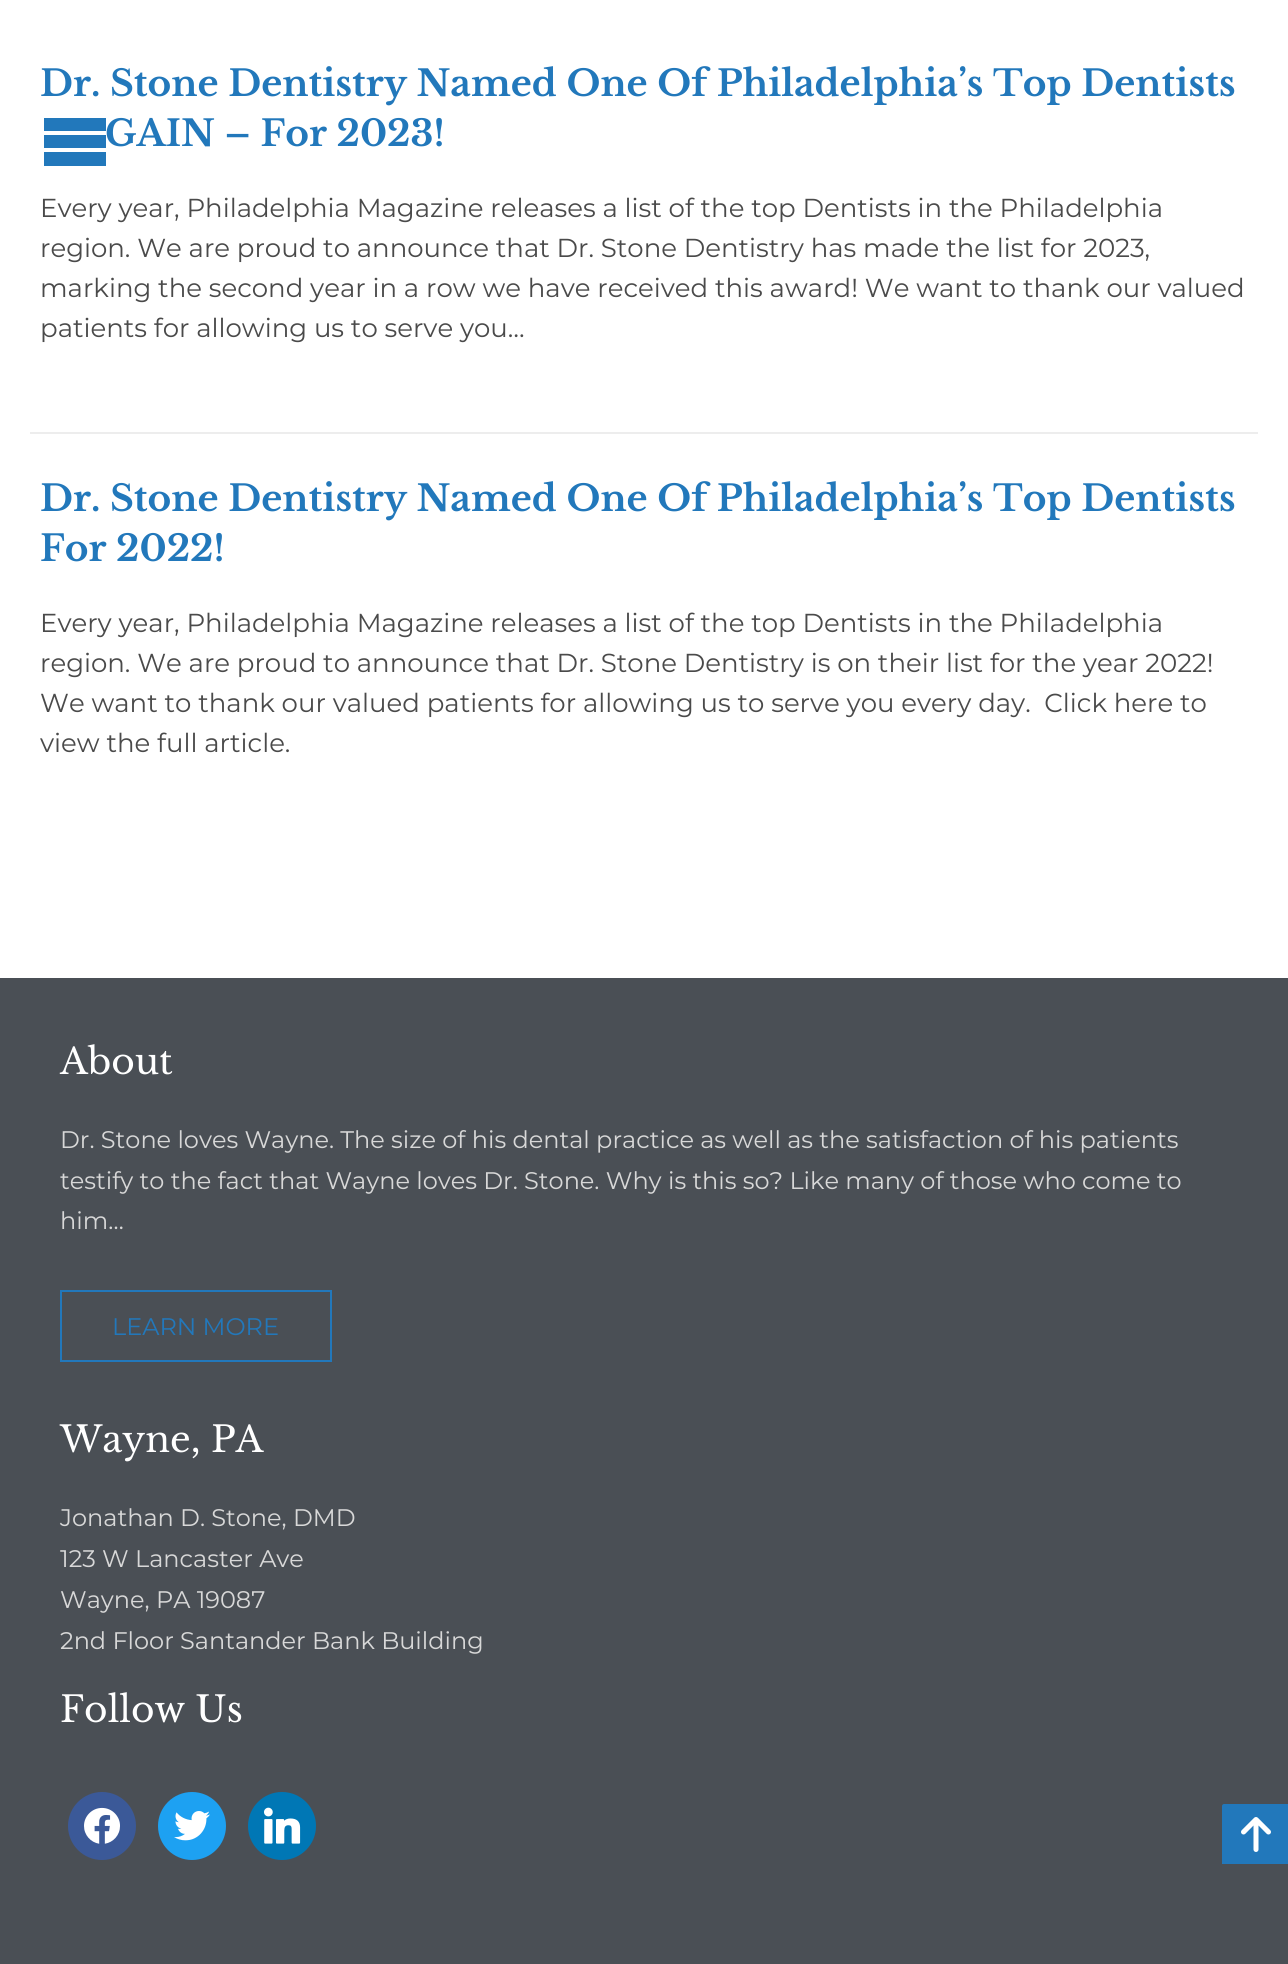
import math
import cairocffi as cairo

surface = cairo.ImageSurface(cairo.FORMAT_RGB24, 1288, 1964)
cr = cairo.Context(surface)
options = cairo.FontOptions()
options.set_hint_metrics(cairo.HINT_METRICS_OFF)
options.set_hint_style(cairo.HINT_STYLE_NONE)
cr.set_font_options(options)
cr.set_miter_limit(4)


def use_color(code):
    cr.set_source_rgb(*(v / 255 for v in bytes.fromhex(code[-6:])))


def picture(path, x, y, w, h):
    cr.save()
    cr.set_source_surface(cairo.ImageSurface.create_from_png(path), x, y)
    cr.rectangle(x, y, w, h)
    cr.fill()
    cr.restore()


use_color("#4a4f55")
cr.paint()
use_color("#ffffff")
cr.rectangle(0, 0, 1288, 978)
cr.fill()
use_color("#ededed")
cr.rectangle(30, 432, 1228, 2)
cr.fill()
cr.select_font_face("Libre Baskerville", cairo.FONT_SLANT_NORMAL, cairo.FONT_WEIGHT_BOLD)
cr.set_font_size(36)
use_color("#2278bb")
cr.move_to(40, 96)
cr.show_text("Dr. Stone Dentistry Named One Of Philadelphia’s Top Dentists")
cr.move_to(105, 146)
cr.show_text("GAIN – For 2023!")
cr.select_font_face("Montserrat")
cr.set_font_size(26)
use_color("#4a4a4a")
cr.move_to(40, 217)
cr.show_text("Every year, Philadelphia Magazine releases a list of the top Dentists in the Philadelphia")
cr.move_to(40, 257)
cr.show_text("region. We are proud to announce that Dr. Stone Dentistry has made the list for 2023,")
cr.move_to(40, 297)
cr.show_text("marking the second year in a row we have received this award! We want to thank our valued")
cr.move_to(40, 337)
cr.show_text("patients for allowing us to serve you…")
cr.select_font_face("Libre Baskerville", cairo.FONT_SLANT_NORMAL, cairo.FONT_WEIGHT_BOLD)
cr.set_font_size(36)
use_color("#2278bb")
cr.move_to(40, 511)
cr.show_text("Dr. Stone Dentistry Named One Of Philadelphia’s Top Dentists")
cr.move_to(40, 561)
cr.show_text("For 2022!")
cr.select_font_face("Montserrat")
cr.set_font_size(26)
use_color("#4a4a4a")
cr.move_to(40, 632)
cr.show_text("Every year, Philadelphia Magazine releases a list of the top Dentists in the Philadelphia")
cr.move_to(40, 672)
cr.show_text("region. We are proud to announce that Dr. Stone Dentistry is on their list for the year 2022!")
cr.move_to(40, 712)
cr.show_text("We want to thank our valued patients for allowing us to serve you every day.  Click here to")
cr.move_to(40, 752)
cr.show_text("view the full article.")
cr.select_font_face("Libre Baskerville")
cr.set_font_size(36)
use_color("#ffffff")
cr.move_to(60, 1074)
cr.show_text("About")
cr.select_font_face("Montserrat")
cr.set_font_size(24)
use_color("#d8d8d8")
cr.move_to(60, 1148)
cr.show_text("Dr. Stone loves Wayne. The size of his dental practice as well as the satisfaction of his patients")
cr.move_to(60, 1189)
cr.show_text("testify to the fact that Wayne loves Dr. Stone. Why is this so? Like many of those who come to")
cr.move_to(60, 1229)
cr.show_text("him…")
cr.rectangle(61, 1291, 270, 70)
use_color("#2278bb")
cr.stroke()
cr.move_to(112, 1335)
cr.show_text("LEARN MORE")
cr.select_font_face("Libre Baskerville")
cr.set_font_size(36)
use_color("#ffffff")
cr.move_to(60, 1452)
cr.show_text("Wayne, PA")
cr.select_font_face("Montserrat")
cr.set_font_size(24)
use_color("#d8d8d8")
cr.move_to(60, 1526)
cr.show_text("Jonathan D. Stone, DMD")
cr.move_to(60, 1567)
cr.show_text("123 W Lancaster Ave")
cr.move_to(60, 1608)
cr.show_text("Wayne, PA 19087")
cr.move_to(60, 1649)
cr.show_text("2nd Floor Santander Bank Building")
cr.select_font_face("Libre Baskerville")
cr.set_font_size(36)
use_color("#ffffff")
cr.move_to(60, 1722)
cr.show_text("Follow Us")
use_color("#3b5998")
cr.new_path()
cr.arc(102, 1826, 34, 0, 2 * math.pi)
cr.fill()
picture("img1.png", 84, 1807, 36, 37)
use_color("#1da1f2")
cr.arc(192, 1826, 34, 0, 2 * math.pi)
cr.fill()
picture("img2.png", 174, 1811, 36, 30)
use_color("#0077b5")
cr.arc(282, 1826, 34, 0, 2 * math.pi)
cr.fill()
picture("img3.png", 264, 1807, 37, 37)
use_color("#2278bb")
cr.new_path()
cr.move_to(44, 118)
cr.line_to(106, 118)
cr.line_to(106, 131)
cr.line_to(44, 131)
cr.close_path()
cr.move_to(44, 135)
cr.line_to(106, 135)
cr.line_to(106, 148)
cr.line_to(44, 148)
cr.close_path()
cr.move_to(44, 152)
cr.line_to(106, 152)
cr.line_to(106, 166)
cr.line_to(44, 166)
cr.close_path()
cr.fill()
cr.new_path()
cr.move_to(1224, 1804)
cr.line_to(1288, 1804)
cr.line_to(1288, 1864)
cr.line_to(1222, 1864)
cr.line_to(1222, 1806)
cr.curve_to(1222, 1805, 1223, 1804, 1224, 1804)
cr.close_path()
cr.fill()
picture("img4.png", 1241, 1817, 30, 35)
surface.write_to_png("result.png")
